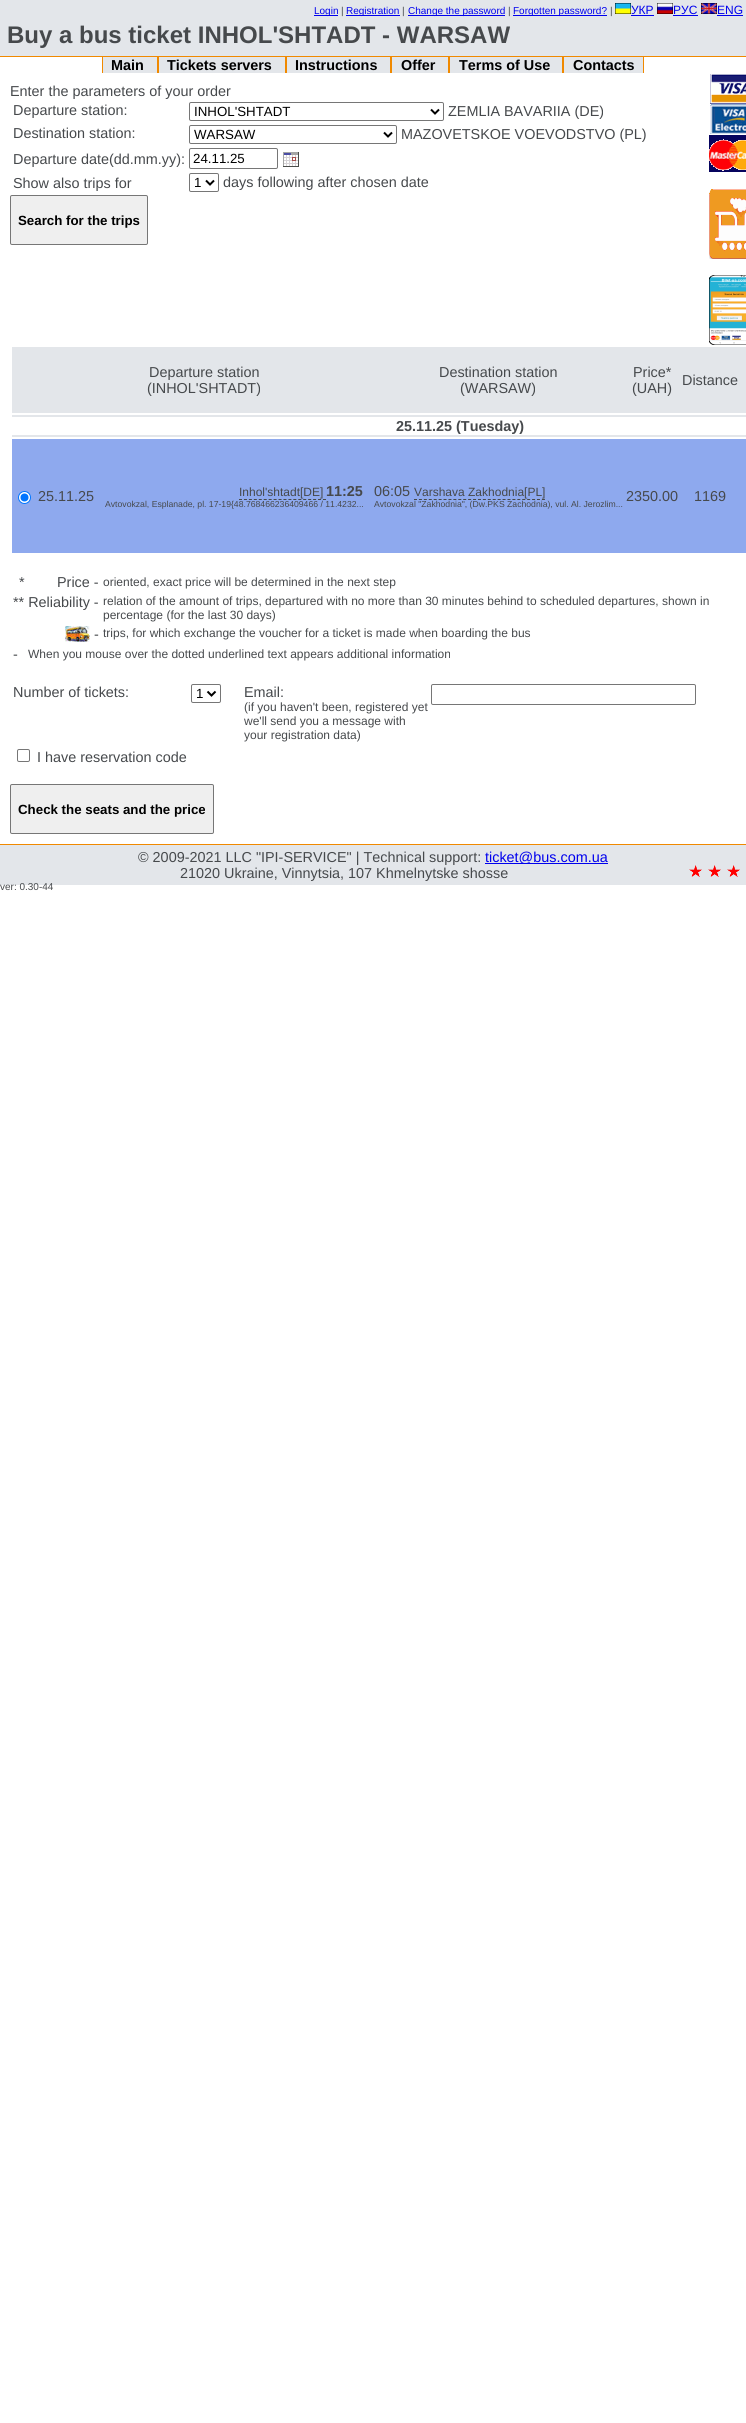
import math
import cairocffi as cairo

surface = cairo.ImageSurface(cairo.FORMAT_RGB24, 746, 2423)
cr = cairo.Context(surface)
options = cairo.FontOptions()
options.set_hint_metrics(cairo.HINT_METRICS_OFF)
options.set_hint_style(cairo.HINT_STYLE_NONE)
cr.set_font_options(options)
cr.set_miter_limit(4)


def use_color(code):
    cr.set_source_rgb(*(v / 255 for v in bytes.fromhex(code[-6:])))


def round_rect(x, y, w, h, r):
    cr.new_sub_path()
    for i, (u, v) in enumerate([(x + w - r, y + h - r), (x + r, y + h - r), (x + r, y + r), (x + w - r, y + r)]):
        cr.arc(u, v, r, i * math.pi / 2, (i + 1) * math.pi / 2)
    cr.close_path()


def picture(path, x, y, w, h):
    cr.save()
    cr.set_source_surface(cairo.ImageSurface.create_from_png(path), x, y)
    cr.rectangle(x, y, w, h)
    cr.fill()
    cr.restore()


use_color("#ffffff")
cr.paint()
use_color("#e3e6ea")
cr.rectangle(0, 0, 746, 56)
cr.fill()
use_color("#f08900")
cr.rectangle(0, 56, 746, 1)
cr.fill()
use_color("#0000ee")
cr.rectangle(314, 15, 24, 1)
cr.fill()
cr.select_font_face("Liberation Sans")
cr.set_font_size(10)
cr.move_to(314, 14)
cr.show_text("Login")
use_color("#46494c")
cr.move_to(341, 14)
cr.show_text("|")
use_color("#0000ee")
cr.rectangle(346, 15, 54, 1)
cr.fill()
cr.move_to(346, 14)
cr.show_text("Registration")
use_color("#46494c")
cr.move_to(402, 14)
cr.show_text("|")
use_color("#0000ee")
cr.rectangle(408, 15, 97, 1)
cr.fill()
cr.move_to(408, 14)
cr.show_text("Change the password")
use_color("#46494c")
cr.move_to(508, 14)
cr.show_text("|")
use_color("#0000ee")
cr.rectangle(513, 15, 94, 1)
cr.fill()
cr.move_to(513, 14)
cr.show_text("Forgotten password?")
use_color("#46494c")
cr.move_to(610, 14)
cr.show_text("|")
picture("img1.png", 615, 3, 16, 11)
cr.set_font_size(12)
use_color("#0000ee")
cr.move_to(631, 14)
cr.show_text("УКР")
cr.rectangle(631, 15, 23, 1)
cr.fill()
picture("img2.png", 657, 3, 16, 11)
cr.move_to(673, 14)
cr.show_text("РУС")
cr.rectangle(673, 15, 25, 1)
cr.fill()
picture("img3.png", 701, 3, 16, 11)
cr.move_to(717, 14)
cr.show_text("ENG")
cr.rectangle(717, 15, 26, 1)
cr.fill()
cr.select_font_face("Liberation Sans", cairo.FONT_SLANT_NORMAL, cairo.FONT_WEIGHT_BOLD)
cr.set_font_size(24)
use_color("#46494c")
cr.move_to(7, 43)
cr.show_text("Buy a bus ticket INHOL'SHTADT - WARSAW")
use_color("#e3e6ea")
cr.rectangle(103, 57, 54, 16)
cr.fill()
cr.set_font_size(14.4)
use_color("#000000")
cr.move_to(111, 70)
cr.show_text("Main")
use_color("#f08900")
cr.rectangle(157, 57, 2, 16)
cr.fill()
cr.rectangle(102, 57, 1, 16)
cr.fill()
use_color("#e3e6ea")
cr.rectangle(159, 57, 126, 16)
cr.fill()
use_color("#000000")
cr.move_to(167, 70)
cr.show_text("Tickets servers")
use_color("#f08900")
cr.rectangle(285, 57, 2, 16)
cr.fill()
use_color("#e3e6ea")
cr.rectangle(287, 57, 103, 16)
cr.fill()
use_color("#000000")
cr.move_to(295, 70)
cr.show_text("Instructions")
use_color("#f08900")
cr.rectangle(390, 57, 2, 16)
cr.fill()
use_color("#e3e6ea")
cr.rectangle(392, 57, 56, 16)
cr.fill()
use_color("#000000")
cr.move_to(401, 70)
cr.show_text("Offer")
use_color("#f08900")
cr.rectangle(448, 57, 2, 16)
cr.fill()
use_color("#e3e6ea")
cr.rectangle(450, 57, 112, 16)
cr.fill()
use_color("#000000")
cr.move_to(459, 70)
cr.show_text("Terms of Use")
use_color("#f08900")
cr.rectangle(562, 57, 2, 16)
cr.fill()
use_color("#e3e6ea")
cr.rectangle(564, 57, 79, 16)
cr.fill()
use_color("#000000")
cr.move_to(573, 70)
cr.show_text("Contacts")
use_color("#f08900")
cr.rectangle(643, 57, 1, 16)
cr.fill()
picture("img4.png", 709, 74, 37, 98)
picture("img5.png", 709, 189, 37, 70)
picture("img6.png", 709, 275, 37, 70)
cr.select_font_face("Liberation Sans")
use_color("#46494c")
cr.move_to(10, 96)
cr.show_text("Enter the parameters of your order")
cr.move_to(13, 115)
cr.show_text("Departure station:")
round_rect(189.5, 102.5, 254, 18, 1.5)
use_color("#767676")
cr.set_line_width(1)
cr.stroke()
cr.new_path()
cr.move_to(431, 109.5)
cr.line_to(435, 113.5)
cr.line_to(439, 109.5)
use_color("#000000")
cr.set_line_width(2)
cr.stroke()
cr.set_font_size(13.3)
cr.move_to(194, 116)
cr.show_text("INHOL'SHTADT")
cr.set_font_size(14.4)
use_color("#46494c")
cr.move_to(448, 116)
cr.show_text("ZEMLIA BAVARIIA (DE)")
cr.move_to(13, 138)
cr.show_text("Destination station:")
round_rect(189.5, 125.5, 207, 18, 1.5)
use_color("#767676")
cr.set_line_width(1)
cr.stroke()
cr.new_path()
cr.move_to(384, 132.5)
cr.line_to(388, 136.5)
cr.line_to(392, 132.5)
use_color("#000000")
cr.set_line_width(2)
cr.stroke()
cr.set_font_size(13.3)
cr.move_to(194, 139)
cr.show_text("WARSAW")
cr.set_font_size(14.4)
use_color("#46494c")
cr.move_to(401, 139)
cr.show_text("MAZOVETSKOE VOEVODSTVO (PL)")
cr.move_to(13, 164)
cr.show_text("Departure date(dd.mm.yy):")
round_rect(189.5, 148.5, 88, 20, 1.5)
use_color("#767676")
cr.set_line_width(1)
cr.stroke()
cr.set_font_size(13.3)
use_color("#000000")
cr.move_to(193, 163)
cr.show_text("24.11.25")
picture("img7.png", 283, 152, 16, 15)
cr.set_font_size(14.4)
use_color("#46494c")
cr.move_to(13, 188)
cr.show_text("Show also trips for")
round_rect(189.5, 173.5, 29, 18, 1.5)
use_color("#767676")
cr.stroke()
cr.new_path()
cr.move_to(206, 180.5)
cr.line_to(210, 184.5)
cr.line_to(214, 180.5)
use_color("#000000")
cr.set_line_width(2)
cr.stroke()
cr.set_font_size(13.3)
cr.move_to(194, 187)
cr.show_text("1")
cr.set_font_size(14.4)
use_color("#46494c")
cr.move_to(223, 187)
cr.show_text("days following after chosen date")
use_color("#efefef")
round_rect(10.5, 195.5, 137, 49, 1.5)
cr.fill_preserve()
use_color("#767676")
cr.set_line_width(1)
cr.stroke()
cr.select_font_face("Liberation Sans", cairo.FONT_SLANT_NORMAL, cairo.FONT_WEIGHT_BOLD)
cr.set_font_size(13.3)
use_color("#000000")
cr.move_to(18, 225)
cr.show_text("Search for the trips")
use_color("#e3e6ea")
cr.rectangle(12, 347, 734, 66)
cr.fill()
cr.select_font_face("Liberation Sans")
cr.set_font_size(14.4)
use_color("#46494c")
cr.move_to(149, 377)
cr.show_text("Departure station")
cr.move_to(147, 393)
cr.show_text("(INHOL'SHTADT)")
cr.move_to(439, 377)
cr.show_text("Destination station")
cr.move_to(460, 393)
cr.show_text("(WARSAW)")
cr.move_to(633, 377)
cr.show_text("Price*")
cr.move_to(632, 393)
cr.show_text("(UAH)")
cr.move_to(682, 385)
cr.show_text("Distance")
use_color("#e3e6ea")
cr.rectangle(12, 415, 734, 2)
cr.fill()
cr.rectangle(12, 435, 734, 2)
cr.fill()
cr.select_font_face("Liberation Sans", cairo.FONT_SLANT_NORMAL, cairo.FONT_WEIGHT_BOLD)
use_color("#46494c")
cr.move_to(396, 431)
cr.show_text("25.11.25 (Tuesday)")
use_color("#8ea9ee")
cr.rectangle(12, 439, 734, 114)
cr.fill()
use_color("#ffffff")
cr.arc(24.5, 497.5, 6, 0, 2 * math.pi)
cr.fill_preserve()
use_color("#0075ff")
cr.stroke()
cr.arc(24.5, 497.5, 4, 0, 2 * math.pi)
cr.fill()
cr.select_font_face("Liberation Sans")
use_color("#46494c")
cr.move_to(38, 501)
cr.show_text("25.11.25")
cr.set_font_size(12)
cr.move_to(239, 496)
cr.show_text("Inhol'shtadt[DE]")
cr.new_path()
cr.move_to(239, 499.5)
cr.line_to(326, 499.5)
cr.set_dash([3, 1.94])
cr.stroke()
cr.select_font_face("Liberation Sans", cairo.FONT_SLANT_NORMAL, cairo.FONT_WEIGHT_BOLD)
cr.set_font_size(14.4)
cr.move_to(326, 496)
cr.show_text("11:25")
cr.select_font_face("Liberation Sans")
cr.set_font_size(8.65)
cr.move_to(105, 507)
cr.show_text("Avtovokzal, Esplanade, pl. 17-19{48.768466236409466 / 11.4232...")
cr.set_font_size(14.4)
cr.move_to(374, 496)
cr.show_text("06:05")
cr.set_font_size(12)
cr.move_to(414, 496)
cr.show_text("Varshava Zakhodnia[PL]")
cr.new_path()
cr.move_to(414, 499.5)
cr.line_to(545, 499.5)
cr.set_dash([3, 1.92])
cr.stroke()
cr.set_font_size(8.65)
cr.move_to(374, 507)
cr.show_text("Avtovokzal \"Zakhodnia\", (Dw.PKS Zachodnia), vul. Al. Jerozlim...")
cr.set_font_size(14.4)
cr.move_to(626, 501)
cr.show_text("2350.00")
cr.move_to(694, 501)
cr.show_text("1169")
cr.move_to(19, 587)
cr.show_text("*")
cr.move_to(57, 587)
cr.show_text("Price -")
cr.set_font_size(12)
cr.move_to(103, 586)
cr.show_text("oriented, exact price will be determined in the next step")
cr.set_font_size(14.4)
cr.move_to(13, 607)
cr.show_text("** Reliability -")
cr.set_font_size(12)
cr.move_to(103, 605)
cr.show_text("relation of the amount of trips, departured with no more than 30 minutes behind to scheduled departures, shown in")
cr.move_to(103, 619)
cr.show_text("percentage (for the last 30 days)")
picture("img8.png", 65, 626, 25, 16)
cr.set_font_size(14.4)
cr.move_to(94, 639)
cr.show_text("-")
cr.set_font_size(12)
cr.move_to(103, 637)
cr.show_text("trips, for which exchange the voucher for a ticket is made when boarding the bus")
cr.set_font_size(14.4)
cr.move_to(13, 659)
cr.show_text("-")
cr.set_font_size(12)
cr.move_to(28, 658)
cr.show_text("When you mouse over the dotted underlined text appears additional information")
cr.set_font_size(14.4)
cr.move_to(13, 697)
cr.show_text("Number of tickets:")
round_rect(191.5, 684.5, 29, 18, 1.5)
use_color("#767676")
cr.set_dash([])
cr.stroke()
cr.new_path()
cr.move_to(207.5, 691.5)
cr.line_to(211.5, 695.5)
cr.line_to(215.5, 691.5)
use_color("#000000")
cr.set_line_width(2)
cr.stroke()
cr.set_font_size(13.3)
cr.move_to(196, 698)
cr.show_text("1")
cr.set_font_size(14.4)
use_color("#46494c")
cr.move_to(244, 697)
cr.show_text("Email:")
cr.set_font_size(12)
cr.move_to(244, 711)
cr.show_text("(if you haven't been, registered yet")
cr.move_to(244, 725)
cr.show_text("we'll send you a message with")
cr.move_to(244, 739)
cr.show_text("your registration data)")
round_rect(431.5, 684.5, 264, 20, 1.5)
use_color("#767676")
cr.set_line_width(1)
cr.stroke()
round_rect(17.5, 749.5, 12, 12, 1.5)
cr.stroke()
cr.set_font_size(14.4)
use_color("#46494c")
cr.move_to(37, 762)
cr.show_text("I have reservation code")
use_color("#efefef")
round_rect(10.5, 784.5, 203, 49, 1.5)
cr.fill_preserve()
use_color("#767676")
cr.stroke()
cr.select_font_face("Liberation Sans", cairo.FONT_SLANT_NORMAL, cairo.FONT_WEIGHT_BOLD)
cr.set_font_size(13.3)
use_color("#000000")
cr.move_to(18, 814)
cr.show_text("Check the seats and the price")
use_color("#e3e6ea")
cr.rectangle(0, 845, 746, 40)
cr.fill()
use_color("#f08900")
cr.rectangle(0, 844, 746, 1)
cr.fill()
cr.select_font_face("Liberation Sans")
cr.set_font_size(14.4)
use_color("#46494c")
cr.move_to(138, 862)
cr.show_text("© 2009-2021 LLC \"IPI-SERVICE\" | Technical support:")
use_color("#0000ee")
cr.rectangle(485, 863, 123, 1)
cr.fill()
cr.move_to(485, 862)
cr.show_text("ticket@bus.com.ua")
use_color("#46494c")
cr.move_to(180, 878)
cr.show_text("21020 Ukraine, Vinnytsia, 107 Khmelnytske shosse")
picture("img9.png", 689, 865, 13, 12)
picture("img9.png", 708, 865, 13, 12)
picture("img9.png", 727, 865, 13, 12)
cr.set_font_size(10)
cr.move_to(0, 890)
cr.show_text("ver: 0.30-44")
surface.write_to_png("result.png")
